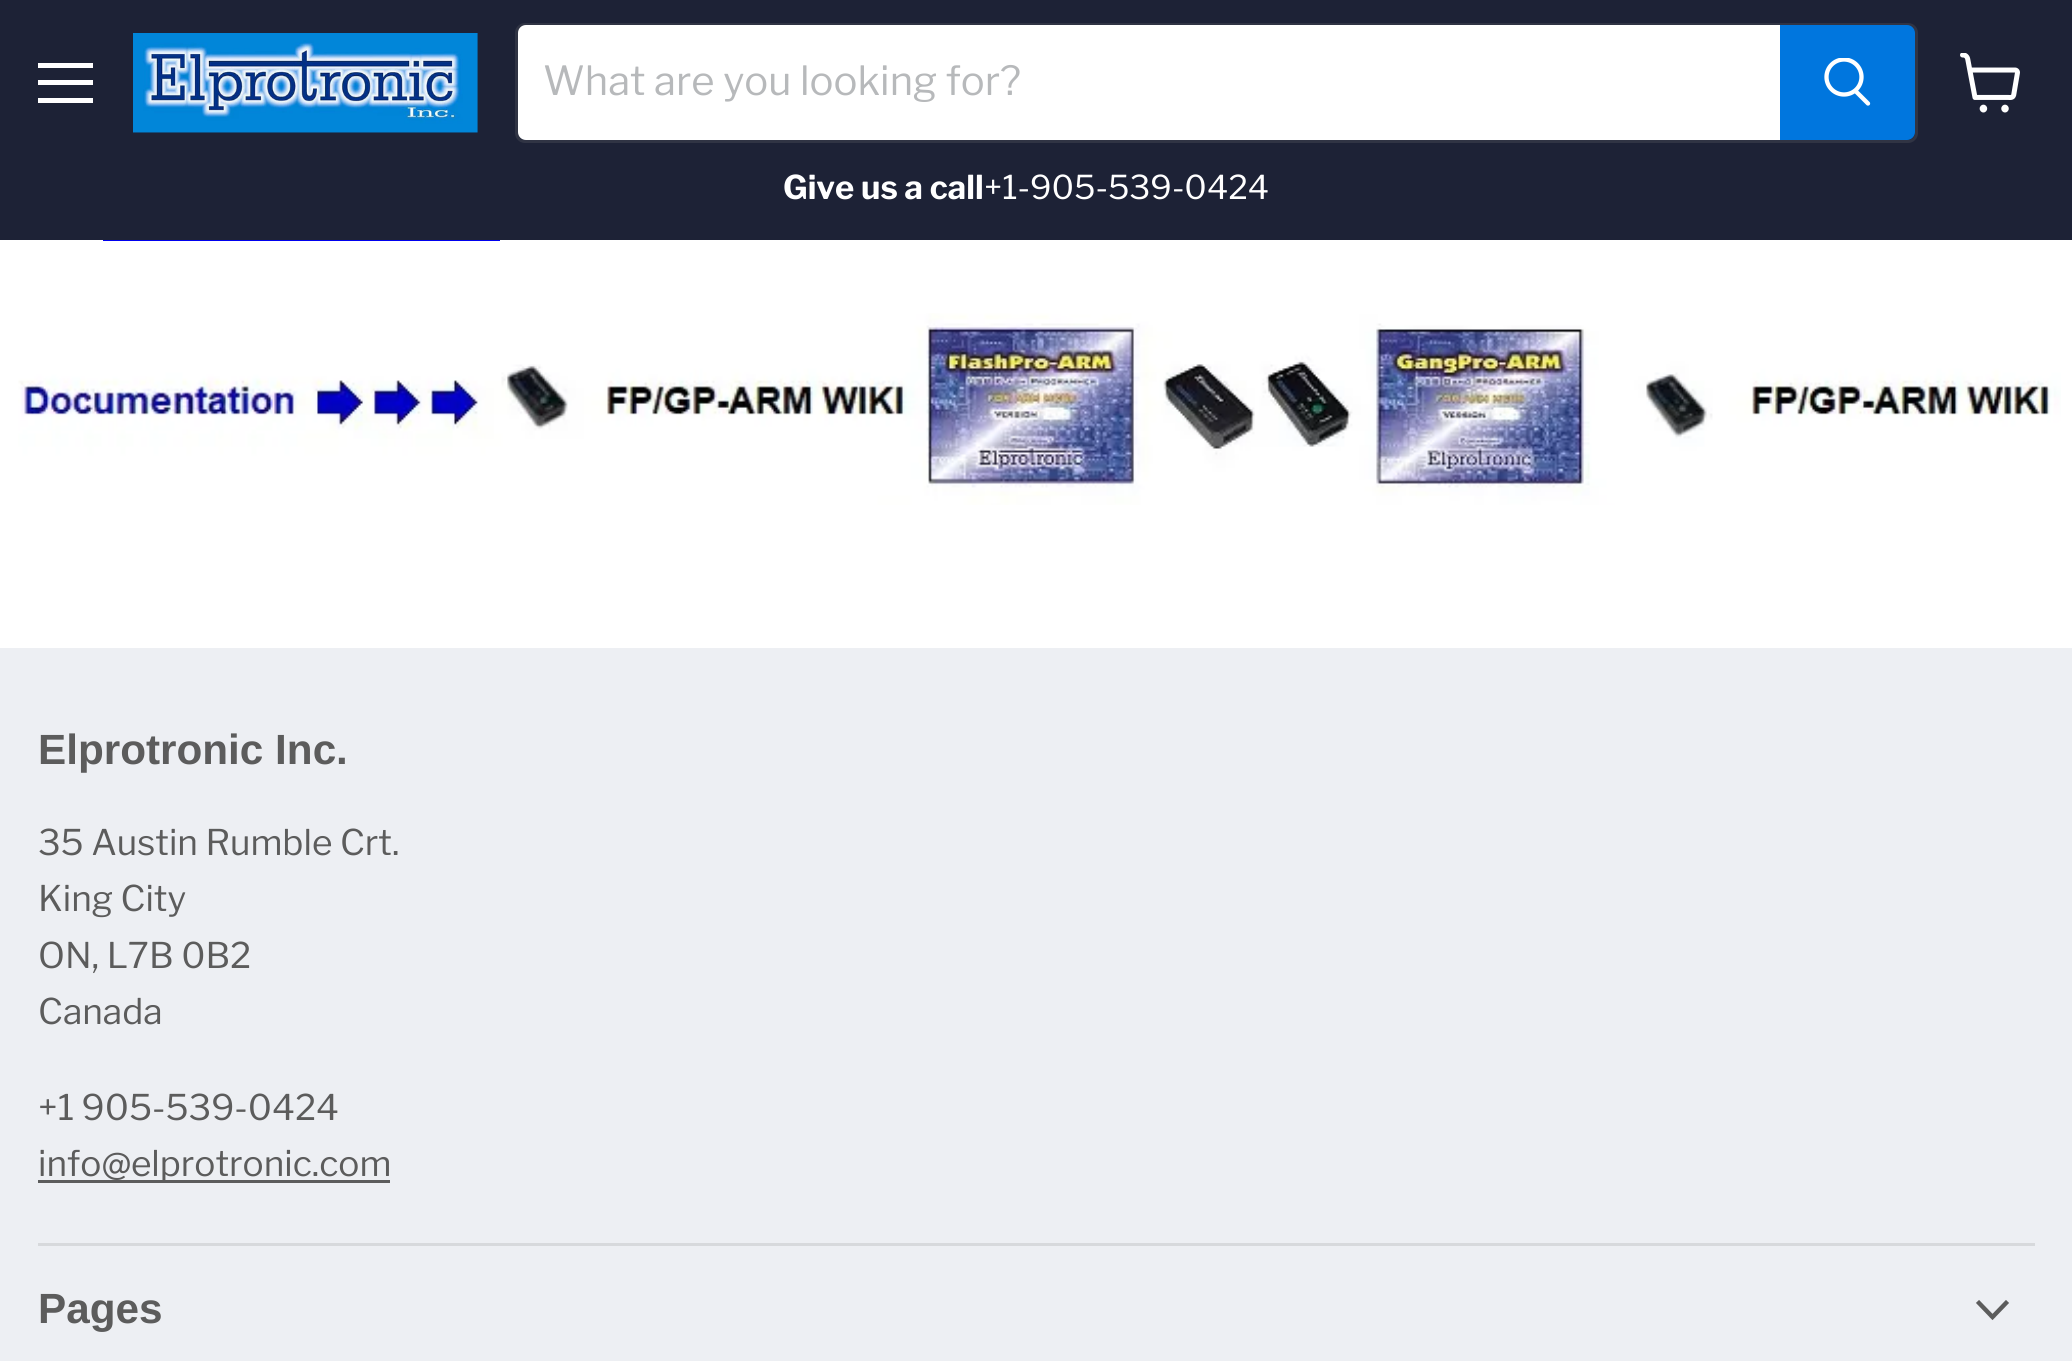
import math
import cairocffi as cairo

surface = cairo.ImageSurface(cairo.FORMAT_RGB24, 2072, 1361)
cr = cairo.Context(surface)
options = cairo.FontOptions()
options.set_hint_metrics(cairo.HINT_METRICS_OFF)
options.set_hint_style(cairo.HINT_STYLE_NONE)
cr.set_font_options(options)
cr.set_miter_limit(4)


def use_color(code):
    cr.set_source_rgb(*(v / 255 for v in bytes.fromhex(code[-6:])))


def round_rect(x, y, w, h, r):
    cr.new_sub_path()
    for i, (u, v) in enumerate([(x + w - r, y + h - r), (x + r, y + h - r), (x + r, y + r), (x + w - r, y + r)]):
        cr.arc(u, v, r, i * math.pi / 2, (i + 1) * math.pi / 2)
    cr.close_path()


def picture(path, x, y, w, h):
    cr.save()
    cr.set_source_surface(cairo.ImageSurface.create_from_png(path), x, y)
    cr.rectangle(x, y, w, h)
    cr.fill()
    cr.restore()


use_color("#ffffff")
cr.paint()
use_color("#1d2236")
cr.rectangle(0, 0, 2072, 240)
cr.fill()
use_color("#ffffff")
cr.rectangle(38, 63, 55, 5)
cr.fill()
cr.rectangle(38, 80, 55, 5)
cr.fill()
cr.rectangle(38, 98, 55, 5)
cr.fill()
picture("img1.png", 133, 33, 345, 100)
round_rect(516.5, 24.5, 1400, 117, 8.5)
cr.set_source_rgba(0.502, 0.502, 0.502, 0.2)
cr.set_line_width(3)
cr.stroke()
use_color("#ffffff")
cr.new_path()
cr.move_to(526, 25)
cr.line_to(1780, 25)
cr.line_to(1780, 140)
cr.line_to(526, 140)
cr.curve_to(521.5, 140, 518, 136.5, 518, 132)
cr.line_to(518, 33)
cr.curve_to(518, 28.5, 521.5, 25, 526, 25)
cr.close_path()
cr.fill()
cr.select_font_face("Libre Franklin")
cr.set_font_size(40)
use_color("#b7b9bb")
cr.move_to(543, 95)
cr.show_text("What are you looking for?")
use_color("#0076de")
cr.new_path()
cr.move_to(1781.5, 26.5)
cr.line_to(1907, 26.5)
cr.curve_to(1910.5, 26.5, 1913.5, 29.5, 1913.5, 33)
cr.line_to(1913.5, 132)
cr.curve_to(1913.5, 135.5, 1910.5, 138.5, 1907, 138.5)
cr.line_to(1781.5, 138.5)
cr.close_path()
cr.fill_preserve()
cr.stroke()
cr.new_path()
cr.move_to(1868, 103.5)
cr.line_to(1856, 91.5)
use_color("#ffffff")
cr.set_line_width(4.3)
cr.set_line_cap(cairo.LINE_CAP_ROUND)
cr.stroke()
cr.save()
cr.rectangle(1823, 58, 50, 52)
cr.clip()
cr.arc(1844, 77, 17.5, 0, 2 * math.pi)
cr.set_line_cap(cairo.LINE_CAP_BUTT)
cr.stroke()
cr.restore()
cr.select_font_face("Libre Franklin", cairo.FONT_SLANT_NORMAL, cairo.FONT_WEIGHT_BOLD)
cr.set_font_size(32.75)
cr.move_to(783, 199)
cr.show_text("Give us a call")
cr.select_font_face("Libre Franklin")
cr.move_to(984, 199)
cr.show_text("+1-905-539-0424")
picture("img2.png", 1960, 53, 60, 60)
use_color("#0000ee")
cr.rectangle(103, 240, 397, 1)
cr.fill()
picture("img3.png", 18, 313, 2043, 192)
use_color("#edeff3")
cr.rectangle(0, 648, 2072, 713)
cr.fill()
use_color("#d7d9dc")
cr.rectangle(38, 1243, 1997, 3)
cr.fill()
cr.select_font_face("Arimo", cairo.FONT_SLANT_NORMAL, cairo.FONT_WEIGHT_BOLD)
cr.set_font_size(42.25)
use_color("#5c5c5c")
cr.move_to(38, 764)
cr.show_text("Elprotronic Inc.")
cr.select_font_face("Libre Franklin")
cr.set_font_size(35.25)
cr.move_to(38, 855)
cr.show_text("35 Austin Rumble Crt.")
cr.move_to(38, 911)
cr.show_text("King City")
cr.move_to(38, 968)
cr.show_text("ON, L7B 0B2")
cr.move_to(38, 1024)
cr.show_text("Canada")
cr.move_to(38, 1120)
cr.show_text("+1 905-539-0424")
cr.rectangle(38, 1180, 352, 3)
cr.fill()
cr.move_to(38, 1176)
cr.show_text("info@elprotronic.com")
cr.select_font_face("Arimo", cairo.FONT_SLANT_NORMAL, cairo.FONT_WEIGHT_BOLD)
cr.set_font_size(42.25)
cr.move_to(38, 1323)
cr.show_text("Pages")
cr.new_path()
cr.move_to(1992.5, 1317)
cr.line_to(2006, 1303)
cr.move_to(1992.5, 1317)
cr.line_to(1979, 1303)
cr.set_line_width(4.4)
cr.set_line_cap(cairo.LINE_CAP_SQUARE)
cr.stroke()
surface.write_to_png("result.png")
